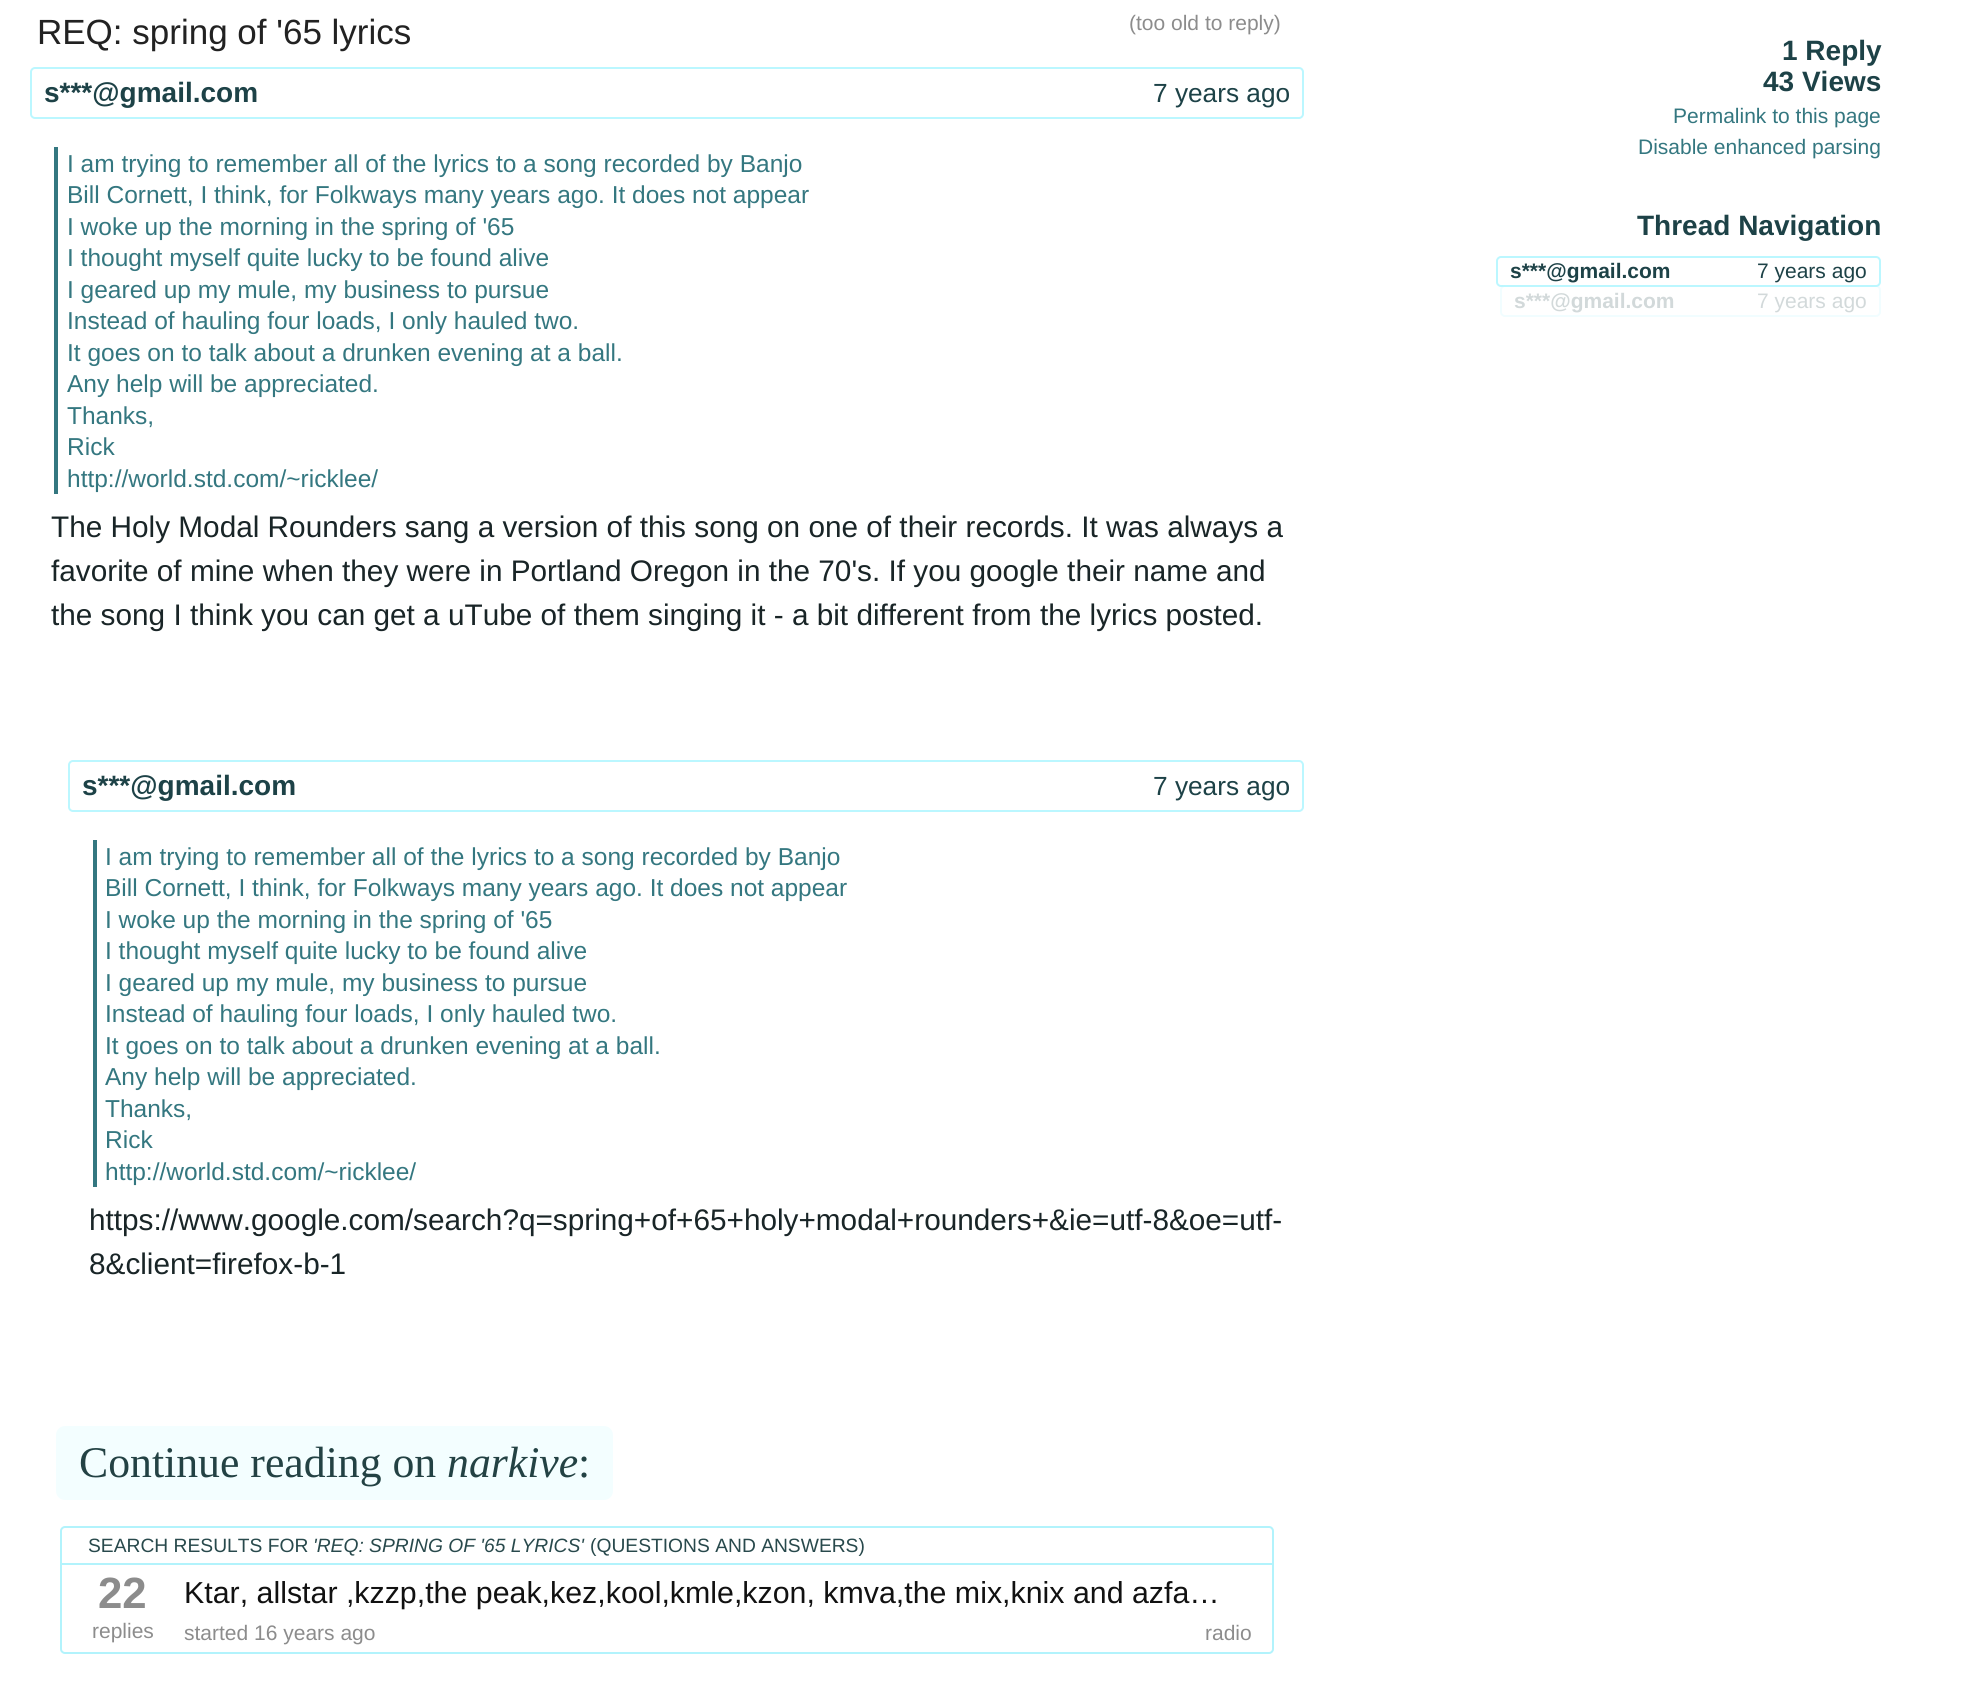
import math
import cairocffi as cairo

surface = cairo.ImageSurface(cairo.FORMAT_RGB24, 1971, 1687)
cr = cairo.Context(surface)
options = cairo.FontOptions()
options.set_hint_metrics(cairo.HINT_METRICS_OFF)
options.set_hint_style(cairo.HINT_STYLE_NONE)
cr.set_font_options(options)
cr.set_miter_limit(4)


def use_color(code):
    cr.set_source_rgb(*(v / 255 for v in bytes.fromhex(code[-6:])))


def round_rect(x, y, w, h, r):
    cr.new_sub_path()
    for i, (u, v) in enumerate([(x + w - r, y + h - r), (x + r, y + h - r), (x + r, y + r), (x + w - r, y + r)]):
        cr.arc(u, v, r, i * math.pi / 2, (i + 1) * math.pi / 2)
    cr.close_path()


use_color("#ffffff")
cr.paint()
cr.select_font_face("Liberation Sans")
cr.set_font_size(35)
use_color("#222222")
cr.move_to(37, 44)
cr.show_text("REQ: spring of '65 lyrics")
cr.set_font_size(21)
use_color("#8c8c8c")
cr.move_to(1129, 30)
cr.show_text("(too old to reply)")
round_rect(31, 68, 1272, 50, 4)
use_color("#bbf7ff")
cr.stroke()
cr.select_font_face("Liberation Sans", cairo.FONT_SLANT_NORMAL, cairo.FONT_WEIGHT_BOLD)
cr.set_font_size(28)
use_color("#1d4247")
cr.move_to(44, 102)
cr.show_text("s***@gmail.com")
cr.select_font_face("Liberation Sans")
cr.set_font_size(26.25)
cr.move_to(1153, 102)
cr.show_text("7 years ago")
use_color("#347780")
cr.rectangle(54, 147, 4, 347)
cr.fill()
cr.set_font_size(24.5)
cr.move_to(67, 172)
cr.show_text("I am trying to remember all of the lyrics to a song recorded by Banjo")
cr.move_to(67, 203)
cr.show_text("Bill Cornett, I think, for Folkways many years ago. It does not appear")
cr.move_to(67, 235)
cr.show_text("I woke up the morning in the spring of '65")
cr.move_to(67, 266)
cr.show_text("I thought myself quite lucky to be found alive")
cr.move_to(67, 298)
cr.show_text("I geared up my mule, my business to pursue")
cr.move_to(67, 329)
cr.show_text("Instead of hauling four loads, I only hauled two.")
cr.move_to(67, 361)
cr.show_text("It goes on to talk about a drunken evening at a ball.")
cr.move_to(67, 392)
cr.show_text("Any help will be appreciated.")
cr.move_to(67, 424)
cr.show_text("Thanks,")
cr.move_to(67, 455)
cr.show_text("Rick")
cr.move_to(67, 487)
cr.show_text("http://world.std.com/~ricklee/")
cr.set_font_size(29.75)
use_color("#192527")
cr.move_to(51, 537)
cr.show_text("The Holy Modal Rounders sang a version of this song on one of their records. It was always a")
cr.move_to(51, 581)
cr.show_text("favorite of mine when they were in Portland Oregon in the 70's. If you google their name and")
cr.move_to(51, 625)
cr.show_text("the song I think you can get a uTube of them singing it - a bit different from the lyrics posted.")
round_rect(69, 761, 1234, 50, 4)
use_color("#bbf7ff")
cr.stroke()
cr.select_font_face("Liberation Sans", cairo.FONT_SLANT_NORMAL, cairo.FONT_WEIGHT_BOLD)
cr.set_font_size(28)
use_color("#1d4247")
cr.move_to(82, 795)
cr.show_text("s***@gmail.com")
cr.select_font_face("Liberation Sans")
cr.set_font_size(26.25)
cr.move_to(1153, 795)
cr.show_text("7 years ago")
use_color("#347780")
cr.rectangle(93, 840, 4, 347)
cr.fill()
cr.set_font_size(24.5)
cr.move_to(105, 865)
cr.show_text("I am trying to remember all of the lyrics to a song recorded by Banjo")
cr.move_to(105, 896)
cr.show_text("Bill Cornett, I think, for Folkways many years ago. It does not appear")
cr.move_to(105, 928)
cr.show_text("I woke up the morning in the spring of '65")
cr.move_to(105, 959)
cr.show_text("I thought myself quite lucky to be found alive")
cr.move_to(105, 991)
cr.show_text("I geared up my mule, my business to pursue")
cr.move_to(105, 1022)
cr.show_text("Instead of hauling four loads, I only hauled two.")
cr.move_to(105, 1054)
cr.show_text("It goes on to talk about a drunken evening at a ball.")
cr.move_to(105, 1085)
cr.show_text("Any help will be appreciated.")
cr.move_to(105, 1117)
cr.show_text("Thanks,")
cr.move_to(105, 1148)
cr.show_text("Rick")
cr.move_to(105, 1180)
cr.show_text("http://world.std.com/~ricklee/")
cr.set_font_size(29.75)
use_color("#192527")
cr.move_to(89, 1230)
cr.show_text("https://www.google.com/search?q=spring+of+65+holy+modal+rounders+&ie=utf-8&oe=utf-")
cr.move_to(89, 1274)
cr.show_text("8&client=firefox-b-1")
use_color("#f3feff")
round_rect(56, 1426, 557, 74, 9)
cr.fill()
cr.select_font_face("Liberation Serif")
cr.set_font_size(43.75)
use_color("#234244")
cr.move_to(79, 1477)
cr.show_text("Continue reading on")
cr.select_font_face("Liberation Serif", cairo.FONT_SLANT_ITALIC)
cr.move_to(447, 1477)
cr.show_text("narkive")
cr.select_font_face("Liberation Serif")
cr.move_to(578, 1477)
cr.show_text(":")
round_rect(61, 1527, 1212, 126, 4)
use_color("#b2f3fc")
cr.stroke()
cr.rectangle(60, 1563, 1214, 2)
cr.fill()
cr.select_font_face("Liberation Sans")
cr.set_font_size(19.25)
use_color("#28494c")
cr.move_to(88, 1552)
cr.show_text("SEARCH RESULTS FOR")
cr.select_font_face("Liberation Sans", cairo.FONT_SLANT_ITALIC)
cr.move_to(313, 1552)
cr.show_text("'REQ: SPRING OF '65 LYRICS'")
cr.select_font_face("Liberation Sans")
cr.move_to(590, 1552)
cr.show_text("(QUESTIONS AND ANSWERS)")
cr.select_font_face("Liberation Sans", cairo.FONT_SLANT_NORMAL, cairo.FONT_WEIGHT_BOLD)
cr.set_font_size(43.75)
use_color("#8c8c8c")
cr.move_to(98, 1608)
cr.show_text("22")
cr.select_font_face("Liberation Sans")
cr.set_font_size(21)
cr.move_to(92, 1638)
cr.show_text("replies")
cr.set_font_size(30.35)
use_color("#111111")
cr.move_to(184, 1603)
cr.show_text("Ktar, allstar ,kzzp,the peak,kez,kool,kmle,kzon, kmva,the mix,knix and azfa…")
cr.set_font_size(21)
use_color("#8c8c8c")
cr.move_to(184, 1640)
cr.show_text("started 16 years ago")
cr.move_to(1205, 1640)
cr.show_text("radio")
cr.select_font_face("Liberation Sans", cairo.FONT_SLANT_NORMAL, cairo.FONT_WEIGHT_BOLD)
cr.set_font_size(28)
use_color("#1d4247")
cr.move_to(1782, 60)
cr.show_text("1 Reply")
cr.move_to(1763, 91)
cr.show_text("43 Views")
cr.select_font_face("Liberation Sans")
cr.set_font_size(21)
use_color("#347780")
cr.move_to(1673, 123)
cr.show_text("Permalink to this page")
cr.move_to(1638, 154)
cr.show_text("Disable enhanced parsing")
cr.select_font_face("Liberation Sans", cairo.FONT_SLANT_NORMAL, cairo.FONT_WEIGHT_BOLD)
cr.set_font_size(28)
use_color("#1d4247")
cr.move_to(1637, 235)
cr.show_text("Thread Navigation")
round_rect(1497, 257, 383, 29, 4)
use_color("#bbf7ff")
cr.stroke()
cr.set_font_size(21)
use_color("#1d4247")
cr.move_to(1510, 278)
cr.show_text("s***@gmail.com")
cr.select_font_face("Liberation Sans")
cr.move_to(1757, 278)
cr.show_text("7 years ago")
round_rect(1501, 286, 379, 30, 4)
cr.set_source_rgba(0.733, 0.969, 1, 0.2)
cr.stroke()
cr.select_font_face("Liberation Sans", cairo.FONT_SLANT_NORMAL, cairo.FONT_WEIGHT_BOLD)
use_color("#d2d9da")
cr.move_to(1514, 308)
cr.show_text("s***@gmail.com")
cr.select_font_face("Liberation Sans")
cr.move_to(1757, 308)
cr.show_text("7 years ago")
surface.write_to_png("result.png")
